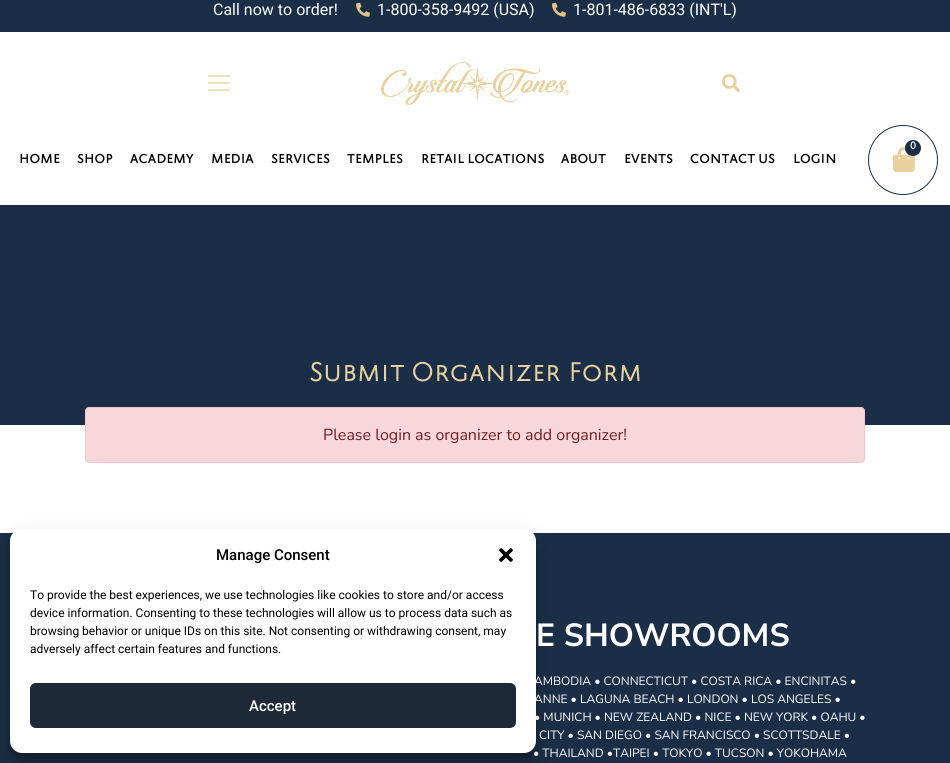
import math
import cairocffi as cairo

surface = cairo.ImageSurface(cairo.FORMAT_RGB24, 950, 763)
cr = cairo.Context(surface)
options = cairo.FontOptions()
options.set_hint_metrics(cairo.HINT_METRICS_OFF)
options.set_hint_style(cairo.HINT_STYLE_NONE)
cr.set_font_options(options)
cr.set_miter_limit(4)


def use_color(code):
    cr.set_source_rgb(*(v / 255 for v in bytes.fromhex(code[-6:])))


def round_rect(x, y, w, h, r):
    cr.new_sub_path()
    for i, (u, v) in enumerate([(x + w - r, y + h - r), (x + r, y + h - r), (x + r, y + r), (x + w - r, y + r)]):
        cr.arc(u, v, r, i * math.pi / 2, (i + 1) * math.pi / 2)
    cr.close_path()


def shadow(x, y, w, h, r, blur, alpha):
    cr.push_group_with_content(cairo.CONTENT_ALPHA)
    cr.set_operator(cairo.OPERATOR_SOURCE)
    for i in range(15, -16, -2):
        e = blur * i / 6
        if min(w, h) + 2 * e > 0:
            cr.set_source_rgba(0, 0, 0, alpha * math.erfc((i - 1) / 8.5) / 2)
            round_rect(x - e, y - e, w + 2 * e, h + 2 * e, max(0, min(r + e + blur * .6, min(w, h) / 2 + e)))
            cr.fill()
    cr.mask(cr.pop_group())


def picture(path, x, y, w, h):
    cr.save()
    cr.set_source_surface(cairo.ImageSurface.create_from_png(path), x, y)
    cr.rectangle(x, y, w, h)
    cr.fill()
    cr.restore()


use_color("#ffffff")
cr.paint()
use_color("#1a2e47")
cr.rectangle(0, 0, 950, 32)
cr.fill()
cr.select_font_face("Roboto")
cr.set_font_size(16)
use_color("#ffffff")
cr.move_to(213, 15)
cr.show_text("Call now to order!")
picture("img1.png", 356, 2, 14, 15)
cr.move_to(377, 15)
cr.show_text("1-800-358-9492 (USA)")
picture("img1.png", 552, 2, 14, 15)
cr.move_to(573, 15)
cr.show_text("1-801-486-6833 (INT'L)")
picture("img2.png", 208, 75, 22, 16)
picture("img3.png", 381, 62, 188, 43)
picture("img4.png", 721, 74, 19, 19)
cr.arc(903, 160, 34.5, 0, 2 * math.pi)
use_color("#1a2e47")
cr.set_line_width(1)
cr.stroke()
picture("img5.png", 893, 147, 22, 26)
cr.arc(913, 148, 8, 0, 2 * math.pi)
cr.fill()
cr.select_font_face("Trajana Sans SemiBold")
cr.set_font_size(10)
use_color("#ffffff")
cr.move_to(910, 149)
cr.show_text("0")
cr.set_font_size(12)
use_color("#000000")
cr.move_to(19, 163)
cr.show_text("HOME")
cr.move_to(77, 163)
cr.show_text("SHOP")
cr.move_to(130, 163)
cr.show_text("ACADEMY")
cr.move_to(211, 163)
cr.show_text("MEDIA")
cr.move_to(271, 163)
cr.show_text("SERVICES")
cr.move_to(347, 163)
cr.show_text("TEMPLES")
cr.move_to(421, 163)
cr.show_text("RETAIL LOCATIONS")
cr.move_to(561, 163)
cr.show_text("ABOUT")
cr.move_to(624, 163)
cr.show_text("EVENTS")
cr.move_to(690, 163)
cr.show_text("CONTACT US")
cr.move_to(793, 163)
cr.show_text("LOGIN")
use_color("#1a2e47")
cr.rectangle(0, 205, 950, 220)
cr.fill()
cr.select_font_face("Trajana Sans")
cr.set_font_size(25)
use_color("#e9d19d")
cr.move_to(309, 381)
cr.show_text("Submit Organizer Form")
use_color("#f8d7da")
round_rect(85.5, 407.5, 779, 55, 3.5)
cr.fill_preserve()
use_color("#f5c6cb")
cr.stroke()
cr.select_font_face("Nunito Sans")
cr.set_font_size(16)
use_color("#721c24")
cr.move_to(323, 440)
cr.show_text("Please login as organizer to add organizer!")
use_color("#1a2e47")
cr.rectangle(0, 533, 950, 230)
cr.fill()
use_color("#000000")
shadow(10, 535, 526, 224, 12, 3, 0.23)
shadow(10, 539, 526, 224, 12, 10, 0.19)
use_color("#ffffff")
round_rect(10, 529, 526, 224, 12)
cr.fill()
cr.select_font_face("Roboto Medium")
cr.set_font_size(15)
use_color("#000000")
cr.move_to(216, 560)
cr.show_text("Manage Consent")
picture("img6.png", 499, 548, 14, 14)
cr.select_font_face("Roboto")
cr.set_font_size(12)
cr.move_to(30, 599)
cr.show_text("To provide the best experiences, we use technologies like cookies to store and/or access")
cr.move_to(30, 617)
cr.show_text("device information. Consenting to these technologies will allow us to process data such as")
cr.move_to(30, 635)
cr.show_text("browsing behavior or unique IDs on this site. Not consenting or withdrawing consent, may")
cr.move_to(30, 653)
cr.show_text("adversely affect certain features and functions.")
use_color("#1e2937")
round_rect(30.5, 683.5, 485, 44, 5.5)
cr.fill_preserve()
cr.stroke()
cr.select_font_face("Roboto Medium")
cr.set_font_size(15)
use_color("#ffffff")
cr.move_to(249, 711)
cr.show_text("Accept")
cr.select_font_face("Nunito Sans", cairo.FONT_SLANT_NORMAL, cairo.FONT_WEIGHT_BOLD)
cr.set_font_size(32)
cr.move_to(536, 646)
cr.show_text("E SHOWROOMS")
cr.select_font_face("Nunito Sans")
cr.set_font_size(12)
cr.move_to(534, 685)
cr.show_text("AMBODIA • CONNECTICUT • COSTA RICA • ENCINITAS •")
cr.move_to(534, 703)
cr.show_text("ANNE • LAGUNA BEACH • LONDON • LOS ANGELES •")
cr.move_to(534, 721)
cr.show_text("• MUNICH • NEW ZEALAND • NICE • NEW YORK • OAHU •")
cr.move_to(539, 739)
cr.show_text("CITY • SAN DIEGO • SAN FRANCISCO • SCOTTSDALE •")
cr.move_to(533, 757)
cr.show_text("• THAILAND •TAIPEI • TOKYO • TUCSON • YOKOHAMA")
surface.write_to_png("result.png")
